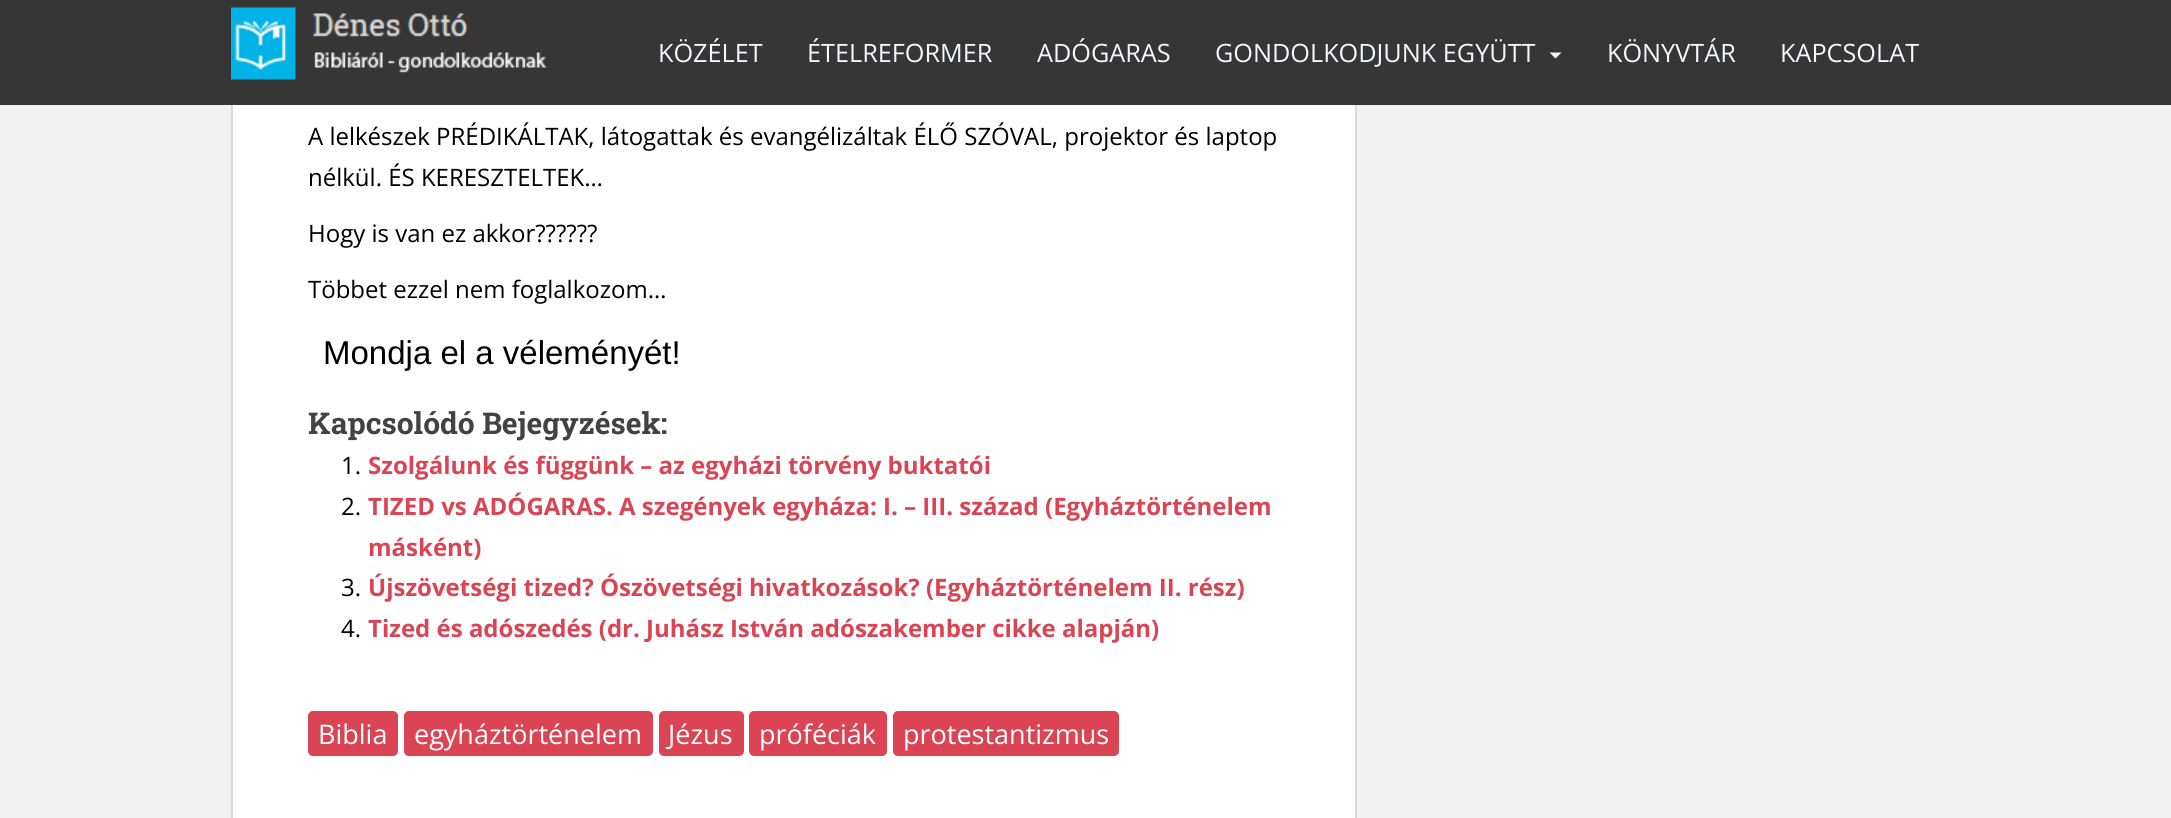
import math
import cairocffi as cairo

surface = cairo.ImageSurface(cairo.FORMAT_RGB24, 2171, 818)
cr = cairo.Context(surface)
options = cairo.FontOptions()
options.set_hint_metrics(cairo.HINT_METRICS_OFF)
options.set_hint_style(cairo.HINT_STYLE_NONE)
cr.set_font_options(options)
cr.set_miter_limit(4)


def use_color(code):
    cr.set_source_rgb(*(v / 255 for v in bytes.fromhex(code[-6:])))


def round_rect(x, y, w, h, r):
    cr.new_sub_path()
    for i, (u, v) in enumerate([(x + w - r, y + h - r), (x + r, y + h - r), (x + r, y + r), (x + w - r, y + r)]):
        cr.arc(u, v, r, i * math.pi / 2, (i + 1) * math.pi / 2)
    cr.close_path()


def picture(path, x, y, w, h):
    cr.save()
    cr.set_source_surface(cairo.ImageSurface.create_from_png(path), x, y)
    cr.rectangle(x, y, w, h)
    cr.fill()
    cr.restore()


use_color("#f2f2f2")
cr.paint()
use_color("#363636")
cr.rectangle(0, 0, 2171, 105)
cr.fill()
picture("img1.png", 231, 7, 316, 73)
cr.select_font_face("Open Sans")
cr.set_font_size(25.25)
use_color("#f5f7fa")
cr.move_to(658, 62)
cr.show_text("KÖZÉLET")
cr.move_to(807, 62)
cr.show_text("ÉTELREFORMER")
cr.move_to(1037, 62)
cr.show_text("ADÓGARAS")
cr.move_to(1215, 62)
cr.show_text("GONDOLKODJUNK EGYÜTT")
cr.new_path()
cr.move_to(1549.5, 52.5)
cr.line_to(1561.5, 52.5)
cr.line_to(1555.5, 58.5)
cr.close_path()
cr.fill()
cr.move_to(1607, 62)
cr.show_text("KÖNYVTÁR")
cr.move_to(1780, 62)
cr.show_text("KAPCSOLAT")
use_color("#ffffff")
cr.rectangle(233, 105, 1122, 713)
cr.fill()
use_color("#dadada")
cr.rectangle(1355, 105, 2, 713)
cr.fill()
cr.rectangle(231, 105, 2, 713)
cr.fill()
cr.set_font_size(24)
use_color("#000000")
cr.move_to(308, 145)
cr.show_text("A lelkészek PRÉDIKÁLTAK, látogattak és evangélizáltak ÉLŐ SZÓVAL, projektor és laptop")
cr.move_to(308, 186)
cr.show_text("nélkül. ÉS KERESZTELTEK…")
cr.move_to(308, 242)
cr.show_text("Hogy is van ez akkor??????")
cr.move_to(308, 298)
cr.show_text("Többet ezzel nem foglalkozom…")
cr.select_font_face("Liberation Sans")
cr.set_font_size(33)
cr.move_to(323, 364)
cr.show_text("Mondja el a véleményét!")
cr.select_font_face("Roboto Slab", cairo.FONT_SLANT_NORMAL, cairo.FONT_WEIGHT_BOLD)
cr.set_font_size(30)
use_color("#424242")
cr.move_to(308, 434)
cr.show_text("Kapcsolódó Bejegyzések:")
cr.select_font_face("Open Sans")
cr.set_font_size(24)
use_color("#000000")
cr.move_to(341, 474)
cr.show_text("1.")
cr.select_font_face("Open Sans", cairo.FONT_SLANT_NORMAL, cairo.FONT_WEIGHT_BOLD)
use_color("#da4453")
cr.move_to(368, 474)
cr.show_text("Szolgálunk és függünk – az egyházi törvény buktatói")
cr.select_font_face("Open Sans")
use_color("#000000")
cr.move_to(341, 515)
cr.show_text("2.")
cr.select_font_face("Open Sans", cairo.FONT_SLANT_NORMAL, cairo.FONT_WEIGHT_BOLD)
use_color("#da4453")
cr.move_to(368, 515)
cr.show_text("TIZED vs ADÓGARAS. A szegények egyháza: I. – III. század (Egyháztörténelem")
cr.move_to(368, 556)
cr.show_text("másként)")
cr.select_font_face("Open Sans")
use_color("#000000")
cr.move_to(341, 596)
cr.show_text("3.")
cr.select_font_face("Open Sans", cairo.FONT_SLANT_NORMAL, cairo.FONT_WEIGHT_BOLD)
use_color("#da4453")
cr.move_to(368, 596)
cr.show_text("Újszövetségi tized? Ószövetségi hivatkozások? (Egyháztörténelem II. rész)")
cr.select_font_face("Open Sans")
use_color("#000000")
cr.move_to(341, 637)
cr.show_text("4.")
cr.select_font_face("Open Sans", cairo.FONT_SLANT_NORMAL, cairo.FONT_WEIGHT_BOLD)
use_color("#da4453")
cr.move_to(368, 637)
cr.show_text("Tized és adószedés (dr. Juhász István adószakember cikke alapján)")
round_rect(308, 711, 90, 45, 5)
cr.fill()
cr.select_font_face("Open Sans")
cr.set_font_size(27)
use_color("#ffffff")
cr.move_to(318, 744)
cr.show_text("Biblia")
use_color("#da4453")
round_rect(404, 711, 249, 45, 5)
cr.fill()
use_color("#ffffff")
cr.move_to(414, 744)
cr.show_text("egyháztörténelem")
use_color("#da4453")
round_rect(659, 711, 85, 45, 5)
cr.fill()
use_color("#ffffff")
cr.move_to(668, 744)
cr.show_text("Jézus")
use_color("#da4453")
round_rect(749, 711, 138, 45, 5)
cr.fill()
use_color("#ffffff")
cr.move_to(759, 744)
cr.show_text("próféciák")
use_color("#da4453")
round_rect(893, 711, 226, 45, 5)
cr.fill()
use_color("#ffffff")
cr.move_to(903, 744)
cr.show_text("protestantizmus")
surface.write_to_png("result.png")
